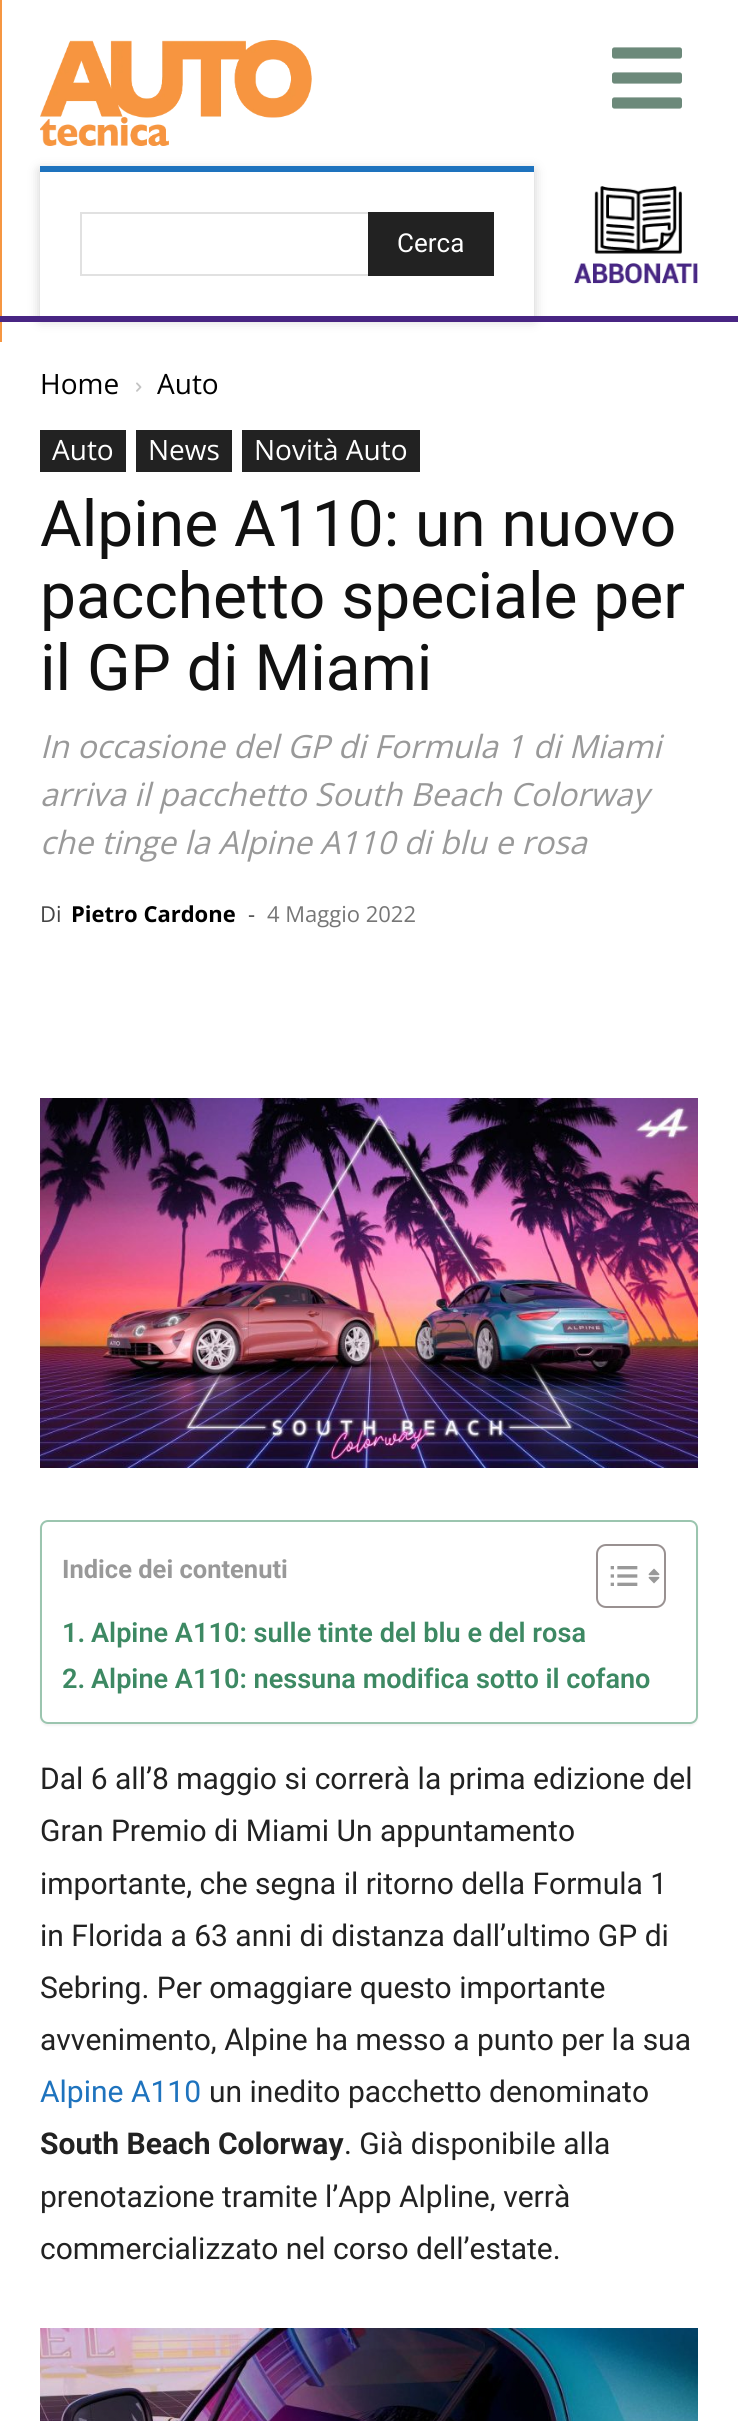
import math
import cairocffi as cairo

surface = cairo.ImageSurface(cairo.FORMAT_RGB24, 738, 2421)
cr = cairo.Context(surface)
options = cairo.FontOptions()
options.set_hint_metrics(cairo.HINT_METRICS_OFF)
options.set_hint_style(cairo.HINT_STYLE_NONE)
cr.set_font_options(options)
cr.set_miter_limit(4)


def use_color(code):
    cr.set_source_rgb(*(v / 255 for v in bytes.fromhex(code[-6:])))


def round_rect(x, y, w, h, r):
    cr.new_sub_path()
    for i, (u, v) in enumerate([(x + w - r, y + h - r), (x + r, y + h - r), (x + r, y + r), (x + w - r, y + r)]):
        cr.arc(u, v, r, i * math.pi / 2, (i + 1) * math.pi / 2)
    cr.close_path()


def shadow(x, y, w, h, r, blur, alpha):
    cr.push_group_with_content(cairo.CONTENT_ALPHA)
    cr.set_operator(cairo.OPERATOR_SOURCE)
    for i in range(15, -16, -2):
        e = blur * i / 6
        if min(w, h) + 2 * e > 0:
            cr.set_source_rgba(0, 0, 0, alpha * math.erfc((i - 1) / 8.5) / 2)
            round_rect(x - e, y - e, w + 2 * e, h + 2 * e, max(0, min(r + e + blur * .6, min(w, h) / 2 + e)))
            cr.fill()
    cr.mask(cr.pop_group())


def picture(path, x, y, w, h):
    cr.save()
    cr.set_source_surface(cairo.ImageSurface.create_from_png(path), x, y)
    cr.rectangle(x, y, w, h)
    cr.fill()
    cr.restore()


use_color("#f69641")
cr.paint()
use_color("#ffffff")
cr.rectangle(2, 0, 736, 342)
cr.fill()
picture("img1.png", 40, 40, 272, 106)
picture("img2.png", 612, 47, 70, 62)
cr.save()
cr.set_fill_rule(cairo.FILL_RULE_EVEN_ODD)
cr.new_path()
cr.move_to(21, 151)
cr.line_to(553, 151)
cr.line_to(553, 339)
cr.line_to(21, 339)
cr.close_path()
cr.move_to(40, 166)
cr.line_to(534, 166)
cr.line_to(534, 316)
cr.line_to(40, 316)
cr.close_path()
cr.clip()
use_color("#000000")
shadow(40, 170, 494, 150, 0, 6, 0.2)
cr.restore()
use_color("#1e73be")
cr.rectangle(40, 166, 494, 6)
cr.fill()
cr.rectangle(81, 213, 412, 62)
use_color("#e1e1e1")
cr.stroke()
use_color("#222222")
cr.rectangle(368, 212, 126, 64)
cr.fill()
cr.select_font_face("Roboto")
cr.set_font_size(26)
use_color("#ffffff")
cr.move_to(397, 252)
cr.show_text("Cerca")
picture("img3.png", 574, 186, 124, 98)
use_color("#482583")
cr.rectangle(0, 316, 738, 6)
cr.fill()
use_color("#ffffff")
cr.rectangle(0, 342, 738, 2079)
cr.fill()
cr.select_font_face("Open Sans")
cr.set_font_size(28)
use_color("#000000")
cr.move_to(40, 394)
cr.show_text("Home")
picture("img4.png", 136, 382, 6, 10)
cr.move_to(157, 394)
cr.show_text("Auto")
use_color("#222222")
cr.rectangle(40, 430, 86, 42)
cr.fill()
use_color("#ffffff")
cr.move_to(52, 460)
cr.show_text("Auto")
use_color("#222222")
cr.rectangle(136, 430, 96, 42)
cr.fill()
use_color("#ffffff")
cr.move_to(148, 460)
cr.show_text("News")
use_color("#222222")
cr.rectangle(242, 430, 178, 42)
cr.fill()
use_color("#ffffff")
cr.move_to(254, 460)
cr.show_text("Novità Auto")
cr.select_font_face("Roboto")
cr.set_font_size(64)
use_color("#111111")
cr.move_to(40, 546)
cr.show_text("Alpine A110: un nuovo")
cr.move_to(40, 618)
cr.show_text("pacchetto speciale per")
cr.move_to(40, 690)
cr.show_text("il GP di Miami")
cr.select_font_face("Open Sans", cairo.FONT_SLANT_ITALIC)
cr.set_font_size(32)
use_color("#999999")
cr.move_to(40, 758)
cr.show_text("In occasione del GP di Formula 1 di Miami")
cr.move_to(40, 806)
cr.show_text("arriva il pacchetto South Beach Colorway")
cr.move_to(40, 854)
cr.show_text("che tinge la Alpine A110 di blu e rosa")
cr.select_font_face("Open Sans")
cr.set_font_size(22)
use_color("#444444")
cr.move_to(40, 922)
cr.show_text("Di")
cr.select_font_face("Open Sans", cairo.FONT_SLANT_NORMAL, cairo.FONT_WEIGHT_BOLD)
use_color("#000000")
cr.move_to(71, 922)
cr.show_text("Pietro Cardone")
cr.select_font_face("Open Sans")
use_color("#444444")
cr.move_to(248, 922)
cr.show_text("-")
use_color("#767676")
cr.move_to(267, 922)
cr.show_text("4 Maggio 2022")
picture("img5.png", 40, 1098, 658, 370)
use_color("#000000")
shadow(40, 1522, 658, 204, 8, 1, 0.05)
use_color("#ffffff")
round_rect(41, 1521, 656, 202, 7)
cr.fill_preserve()
use_color("#9bc5af")
cr.stroke()
cr.select_font_face("Roboto", cairo.FONT_SLANT_NORMAL, cairo.FONT_WEIGHT_BOLD)
cr.set_font_size(25.5)
use_color("#999999")
cr.move_to(62, 1578)
cr.show_text("Indice dei contenuti")
round_rect(597, 1545, 68, 62, 9)
use_color("#999191")
cr.stroke()
picture("img6.png", 610, 1566, 28, 20)
picture("img7.png", 648, 1568, 12, 16)
cr.select_font_face("Roboto SemiBold")
cr.set_font_size(27.1)
use_color("#3d8963")
cr.move_to(62, 1642)
cr.show_text("1.")
cr.move_to(91, 1642)
cr.show_text("Alpine A110: sulle tinte del blu e del rosa")
cr.move_to(62, 1688)
cr.show_text("2.")
cr.move_to(91, 1688)
cr.show_text("Alpine A110: nessuna modifica sotto il cofano")
cr.select_font_face("Roboto")
cr.set_font_size(30)
use_color("#222222")
cr.move_to(40, 1789)
cr.show_text("Dal 6 all’8 maggio si correrà la prima edizione del")
cr.move_to(40, 1841)
cr.show_text("Gran Premio di Miami Un appuntamento")
cr.move_to(40, 1894)
cr.show_text("importante, che segna il ritorno della Formula 1")
cr.move_to(40, 1946)
cr.show_text("in Florida a 63 anni di distanza dall’ultimo GP di")
cr.move_to(40, 1998)
cr.show_text("Sebring. Per omaggiare questo importante")
cr.move_to(40, 2050)
cr.show_text("avvenimento, Alpine ha messo a punto per la sua")
use_color("#1e73be")
cr.move_to(40, 2102)
cr.show_text("Alpine A110")
use_color("#222222")
cr.move_to(209, 2102)
cr.show_text("un inedito pacchetto denominato")
cr.select_font_face("Roboto", cairo.FONT_SLANT_NORMAL, cairo.FONT_WEIGHT_BOLD)
cr.move_to(40, 2154)
cr.show_text("South Beach Colorway")
cr.select_font_face("Roboto")
cr.move_to(344, 2154)
cr.show_text(". Già disponibile alla")
cr.move_to(40, 2207)
cr.show_text("prenotazione tramite l’App Alpline, verrà")
cr.move_to(40, 2259)
cr.show_text("commercializzato nel corso dell’estate.")
picture("img8.png", 40, 2328, 658, 93)
surface.write_to_png("result.png")
